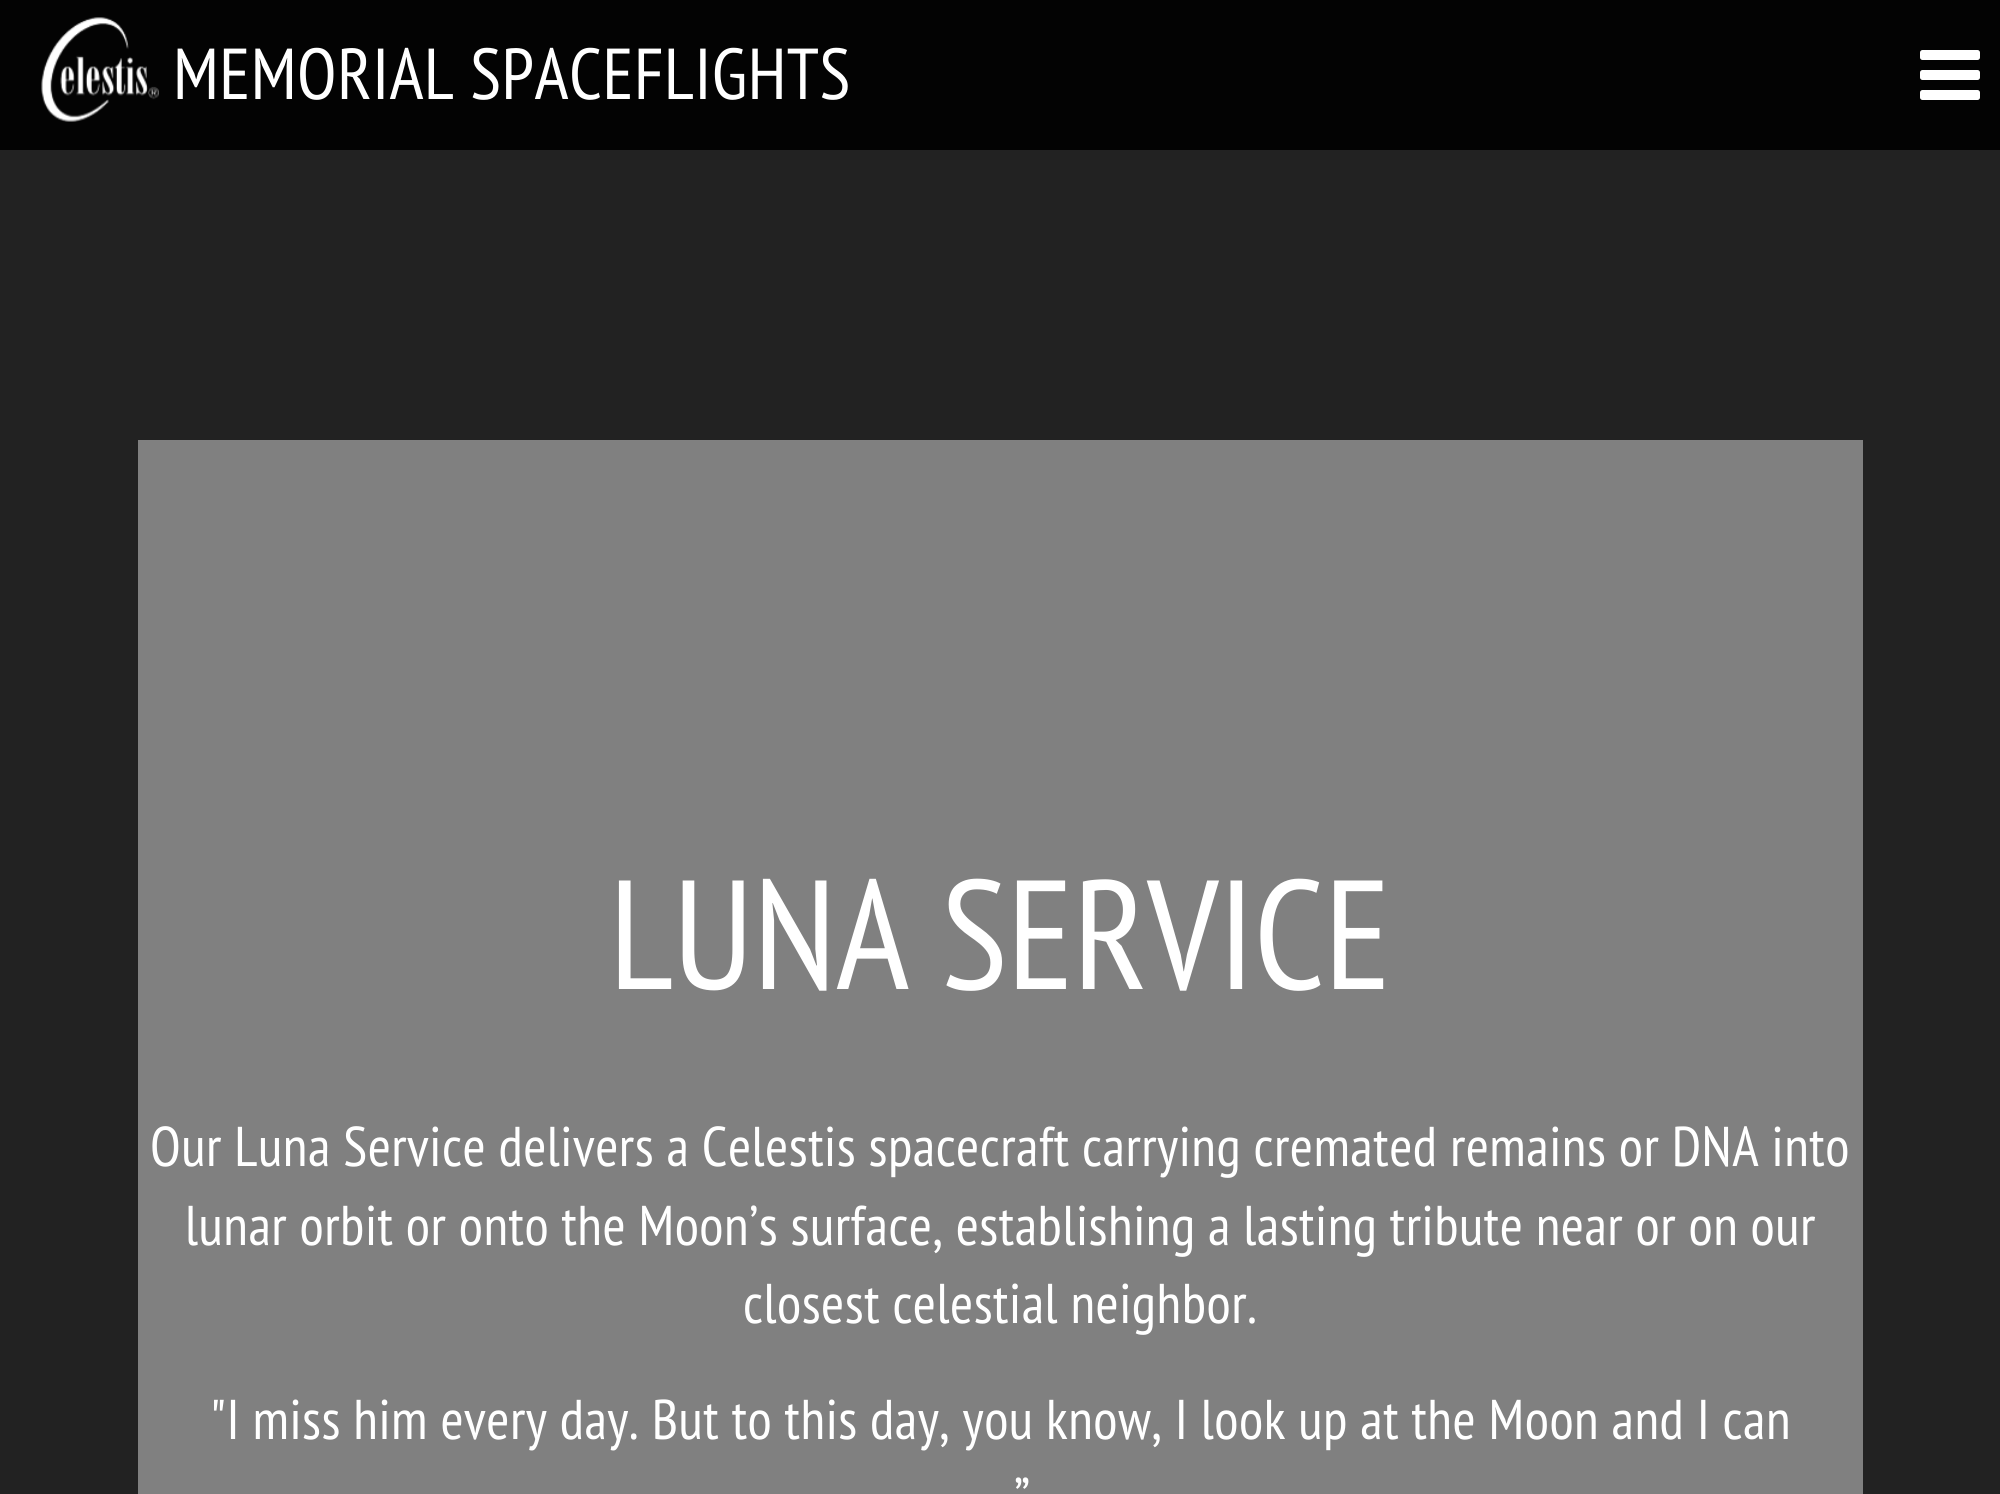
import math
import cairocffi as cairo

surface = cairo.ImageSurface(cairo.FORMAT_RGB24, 2000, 1494)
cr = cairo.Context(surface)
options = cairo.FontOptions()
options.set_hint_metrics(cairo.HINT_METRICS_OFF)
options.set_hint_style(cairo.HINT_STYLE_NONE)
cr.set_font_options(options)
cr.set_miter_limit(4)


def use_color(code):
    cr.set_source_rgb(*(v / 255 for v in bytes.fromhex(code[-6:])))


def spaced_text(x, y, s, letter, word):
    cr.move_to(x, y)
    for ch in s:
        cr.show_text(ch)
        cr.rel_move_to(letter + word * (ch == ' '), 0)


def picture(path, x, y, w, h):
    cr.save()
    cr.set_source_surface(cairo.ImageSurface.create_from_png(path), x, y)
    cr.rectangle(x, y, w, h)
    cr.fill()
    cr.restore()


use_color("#222222")
cr.paint()
use_color("#030303")
cr.rectangle(0, 0, 2000, 150)
cr.fill()
picture("img1.png", 41, 17, 118, 105)
cr.select_font_face("PT Sans Narrow")
cr.set_font_size(72)
use_color("#ffffff")
spaced_text(173, 99, "MEMORIAL SPACEFLIGHTS", 0.5, 0)
picture("img2.png", 1920, 50, 60, 50)
use_color("#808080")
cr.rectangle(138, 440, 1725, 1054)
cr.fill()
cr.set_font_size(155)
use_color("#ffffff")
spaced_text(609, 989, "LUNA SERVICE", -0.5, 0)
cr.set_font_size(56)
spaced_text(150, 1166, "Our Luna Service delivers a Celestis spacecraft carrying cremated remains or DNA into", 0.5, 0)
spaced_text(185, 1245, "lunar orbit or onto the Moon’s surface, establishing a lasting tribute near or on our", 0.5, 0)
spaced_text(743, 1323, "closest celestial neighbor.", 0.5, 0)
spaced_text(210, 1439, "\"I miss him every day. But to this day, you know, I look up at the Moon and I can", 0.5, 0)
spaced_text(1014, 1517, "”", 0.5, 0)
surface.write_to_png("result.png")
